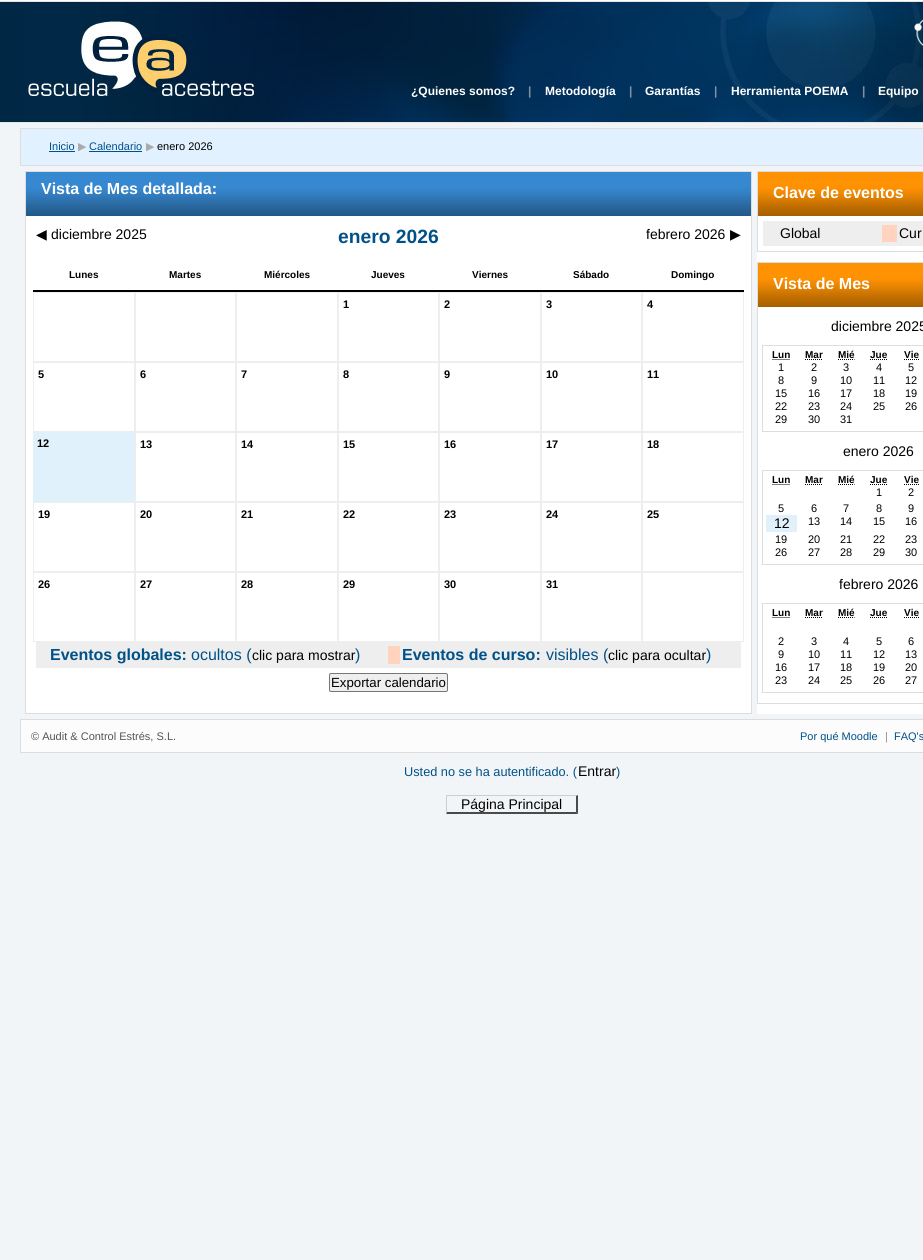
import math
import cairocffi as cairo

surface = cairo.ImageSurface(cairo.FORMAT_RGB24, 923, 1260)
cr = cairo.Context(surface)
options = cairo.FontOptions()
options.set_hint_metrics(cairo.HINT_METRICS_OFF)
options.set_hint_style(cairo.HINT_STYLE_NONE)
cr.set_font_options(options)
cr.set_miter_limit(4)


def use_color(code):
    cr.set_source_rgb(*(v / 255 for v in bytes.fromhex(code[-6:])))


def round_rect(x, y, w, h, r):
    cr.new_sub_path()
    for i, (u, v) in enumerate([(x + w - r, y + h - r), (x + r, y + h - r), (x + r, y + r), (x + w - r, y + r)]):
        cr.arc(u, v, r, i * math.pi / 2, (i + 1) * math.pi / 2)
    cr.close_path()


def picture(path, x, y, w, h):
    cr.save()
    cr.set_source_surface(cairo.ImageSurface.create_from_png(path), x, y)
    cr.rectangle(x, y, w, h)
    cr.fill()
    cr.restore()


use_color("#f2f5f7")
cr.paint()
picture("img1.png", 0, 0, 923, 123)
cr.select_font_face("Liberation Sans", cairo.FONT_SLANT_NORMAL, cairo.FONT_WEIGHT_BOLD)
cr.set_font_size(12)
use_color("#ffffff")
cr.move_to(411, 95)
cr.show_text("¿Quienes somos?")
use_color("#8090a0")
cr.move_to(528, 95)
cr.show_text("|")
use_color("#ffffff")
cr.move_to(545, 95)
cr.show_text("Metodología")
use_color("#8090a0")
cr.move_to(629, 95)
cr.show_text("|")
use_color("#ffffff")
cr.move_to(645, 95)
cr.show_text("Garantías")
use_color("#8090a0")
cr.move_to(714, 95)
cr.show_text("|")
use_color("#ffffff")
cr.move_to(731, 95)
cr.show_text("Herramienta POEMA")
use_color("#8090a0")
cr.move_to(862, 95)
cr.show_text("|")
use_color("#ffffff")
cr.move_to(878, 95)
cr.show_text("Equipo")
use_color("#e2f1ff")
cr.rectangle(20.5, 128.5, 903, 37)
cr.fill_preserve()
use_color("#dddddd")
cr.set_line_width(1)
cr.stroke()
cr.select_font_face("Liberation Sans")
cr.set_font_size(11)
use_color("#005188")
cr.move_to(49, 150)
cr.show_text("Inicio")
cr.rectangle(49, 151, 26, 1)
cr.fill()
cr.select_font_face("DejaVu Sans")
use_color("#aaaaaa")
cr.move_to(78, 150)
cr.show_text("▶")
cr.select_font_face("Liberation Sans")
use_color("#005188")
cr.move_to(89, 150)
cr.show_text("Calendario")
cr.rectangle(89, 151, 53, 1)
cr.fill()
cr.select_font_face("DejaVu Sans")
use_color("#aaaaaa")
cr.move_to(146, 150)
cr.show_text("▶")
cr.select_font_face("Liberation Sans")
use_color("#000000")
cr.move_to(157, 150)
cr.show_text("enero 2026")
use_color("#ffffff")
cr.rectangle(26, 216, 725, 497)
cr.fill()
cr.rectangle(25.5, 171.5, 726, 542)
use_color("#dddddd")
cr.stroke()
picture("img2.png", 26, 172, 725, 44)
cr.select_font_face("Liberation Sans", cairo.FONT_SLANT_NORMAL, cairo.FONT_WEIGHT_BOLD)
cr.set_font_size(16)
use_color("#ffffff")
cr.move_to(41, 194)
cr.show_text("Vista de Mes detallada:")
cr.select_font_face("DejaVu Sans")
cr.set_font_size(14)
use_color("#000000")
cr.move_to(36, 239)
cr.show_text("◀")
cr.select_font_face("Liberation Sans")
cr.move_to(51, 239)
cr.show_text("diciembre 2025")
cr.select_font_face("Liberation Sans", cairo.FONT_SLANT_NORMAL, cairo.FONT_WEIGHT_BOLD)
cr.set_font_size(19.25)
use_color("#005188")
cr.move_to(338, 243)
cr.show_text("enero 2026")
cr.select_font_face("Liberation Sans")
cr.set_font_size(14)
use_color("#000000")
cr.move_to(646, 239)
cr.show_text("febrero 2026")
cr.select_font_face("DejaVu Sans")
cr.move_to(730, 239)
cr.show_text("▶")
cr.rectangle(33, 290, 711, 2)
cr.fill()
cr.select_font_face("Liberation Sans", cairo.FONT_SLANT_NORMAL, cairo.FONT_WEIGHT_BOLD)
cr.set_font_size(10)
cr.move_to(69, 278)
cr.show_text("Lunes")
cr.move_to(169, 278)
cr.show_text("Martes")
cr.move_to(264, 278)
cr.show_text("Miércoles")
cr.move_to(371, 278)
cr.show_text("Jueves")
cr.move_to(472, 278)
cr.show_text("Viernes")
cr.move_to(573, 278)
cr.show_text("Sábado")
cr.move_to(671, 278)
cr.show_text("Domingo")
cr.rectangle(33.5, 292.5, 101, 69)
use_color("#eeeeee")
cr.stroke()
cr.rectangle(135.5, 292.5, 100, 69)
cr.stroke()
cr.rectangle(236.5, 292.5, 101, 69)
cr.stroke()
cr.rectangle(338.5, 292.5, 100, 69)
cr.stroke()
cr.set_font_size(11)
use_color("#000000")
cr.move_to(343, 308)
cr.show_text("1")
cr.rectangle(439.5, 292.5, 101, 69)
use_color("#eeeeee")
cr.stroke()
use_color("#000000")
cr.move_to(444, 308)
cr.show_text("2")
cr.rectangle(541.5, 292.5, 100, 69)
use_color("#eeeeee")
cr.stroke()
use_color("#000000")
cr.move_to(546, 308)
cr.show_text("3")
cr.rectangle(642.5, 292.5, 101, 69)
use_color("#eeeeee")
cr.stroke()
use_color("#000000")
cr.move_to(647, 308)
cr.show_text("4")
cr.rectangle(33.5, 362.5, 101, 69)
use_color("#eeeeee")
cr.stroke()
use_color("#000000")
cr.move_to(38, 378)
cr.show_text("5")
cr.rectangle(135.5, 362.5, 100, 69)
use_color("#eeeeee")
cr.stroke()
use_color("#000000")
cr.move_to(140, 378)
cr.show_text("6")
cr.rectangle(236.5, 362.5, 101, 69)
use_color("#eeeeee")
cr.stroke()
use_color("#000000")
cr.move_to(241, 378)
cr.show_text("7")
cr.rectangle(338.5, 362.5, 100, 69)
use_color("#eeeeee")
cr.stroke()
use_color("#000000")
cr.move_to(343, 378)
cr.show_text("8")
cr.rectangle(439.5, 362.5, 101, 69)
use_color("#eeeeee")
cr.stroke()
use_color("#000000")
cr.move_to(444, 378)
cr.show_text("9")
cr.rectangle(541.5, 362.5, 100, 69)
use_color("#eeeeee")
cr.stroke()
use_color("#000000")
cr.move_to(546, 378)
cr.show_text("10")
cr.rectangle(642.5, 362.5, 101, 69)
use_color("#eeeeee")
cr.stroke()
use_color("#000000")
cr.move_to(647, 378)
cr.show_text("11")
use_color("#e0f1fc")
cr.rectangle(33, 432, 102, 70)
cr.fill()
use_color("#000000")
cr.move_to(37, 447)
cr.show_text("12")
cr.rectangle(135.5, 432.5, 100, 69)
use_color("#eeeeee")
cr.stroke()
use_color("#000000")
cr.move_to(140, 448)
cr.show_text("13")
cr.rectangle(236.5, 432.5, 101, 69)
use_color("#eeeeee")
cr.stroke()
use_color("#000000")
cr.move_to(241, 448)
cr.show_text("14")
cr.rectangle(338.5, 432.5, 100, 69)
use_color("#eeeeee")
cr.stroke()
use_color("#000000")
cr.move_to(343, 448)
cr.show_text("15")
cr.rectangle(439.5, 432.5, 101, 69)
use_color("#eeeeee")
cr.stroke()
use_color("#000000")
cr.move_to(444, 448)
cr.show_text("16")
cr.rectangle(541.5, 432.5, 100, 69)
use_color("#eeeeee")
cr.stroke()
use_color("#000000")
cr.move_to(546, 448)
cr.show_text("17")
cr.rectangle(642.5, 432.5, 101, 69)
use_color("#eeeeee")
cr.stroke()
use_color("#000000")
cr.move_to(647, 448)
cr.show_text("18")
cr.rectangle(33.5, 502.5, 101, 69)
use_color("#eeeeee")
cr.stroke()
use_color("#000000")
cr.move_to(38, 518)
cr.show_text("19")
cr.rectangle(135.5, 502.5, 100, 69)
use_color("#eeeeee")
cr.stroke()
use_color("#000000")
cr.move_to(140, 518)
cr.show_text("20")
cr.rectangle(236.5, 502.5, 101, 69)
use_color("#eeeeee")
cr.stroke()
use_color("#000000")
cr.move_to(241, 518)
cr.show_text("21")
cr.rectangle(338.5, 502.5, 100, 69)
use_color("#eeeeee")
cr.stroke()
use_color("#000000")
cr.move_to(343, 518)
cr.show_text("22")
cr.rectangle(439.5, 502.5, 101, 69)
use_color("#eeeeee")
cr.stroke()
use_color("#000000")
cr.move_to(444, 518)
cr.show_text("23")
cr.rectangle(541.5, 502.5, 100, 69)
use_color("#eeeeee")
cr.stroke()
use_color("#000000")
cr.move_to(546, 518)
cr.show_text("24")
cr.rectangle(642.5, 502.5, 101, 69)
use_color("#eeeeee")
cr.stroke()
use_color("#000000")
cr.move_to(647, 518)
cr.show_text("25")
cr.rectangle(33.5, 572.5, 101, 69)
use_color("#eeeeee")
cr.stroke()
use_color("#000000")
cr.move_to(38, 588)
cr.show_text("26")
cr.rectangle(135.5, 572.5, 100, 69)
use_color("#eeeeee")
cr.stroke()
use_color("#000000")
cr.move_to(140, 588)
cr.show_text("27")
cr.rectangle(236.5, 572.5, 101, 69)
use_color("#eeeeee")
cr.stroke()
use_color("#000000")
cr.move_to(241, 588)
cr.show_text("28")
cr.rectangle(338.5, 572.5, 100, 69)
use_color("#eeeeee")
cr.stroke()
use_color("#000000")
cr.move_to(343, 588)
cr.show_text("29")
cr.rectangle(439.5, 572.5, 101, 69)
use_color("#eeeeee")
cr.stroke()
use_color("#000000")
cr.move_to(444, 588)
cr.show_text("30")
cr.rectangle(541.5, 572.5, 100, 69)
use_color("#eeeeee")
cr.stroke()
use_color("#000000")
cr.move_to(546, 588)
cr.show_text("31")
cr.rectangle(642.5, 572.5, 101, 69)
use_color("#eeeeee")
cr.stroke()
cr.rectangle(36, 642, 705, 26)
cr.fill()
cr.set_font_size(16)
use_color("#005188")
cr.move_to(50, 660)
cr.show_text("Eventos globales:")
cr.select_font_face("Liberation Sans")
cr.move_to(191, 660)
cr.show_text("ocultos (")
cr.set_font_size(14)
use_color("#000000")
cr.move_to(252, 660)
cr.show_text("clic para mostrar")
cr.set_font_size(16)
use_color("#005188")
cr.move_to(355, 660)
cr.show_text(")")
use_color("#ffd3bd")
cr.rectangle(388, 646, 12, 18)
cr.fill()
cr.select_font_face("Liberation Sans", cairo.FONT_SLANT_NORMAL, cairo.FONT_WEIGHT_BOLD)
use_color("#005188")
cr.move_to(402, 660)
cr.show_text("Eventos de curso:")
cr.select_font_face("Liberation Sans")
cr.move_to(546, 660)
cr.show_text("visibles (")
cr.set_font_size(14)
use_color("#000000")
cr.move_to(608, 660)
cr.show_text("clic para ocultar")
cr.set_font_size(16)
use_color("#005188")
cr.move_to(706, 660)
cr.show_text(")")
use_color("#efefef")
round_rect(329.5, 673.5, 118, 18, 1.5)
cr.fill_preserve()
use_color("#767676")
cr.stroke()
cr.set_font_size(13.25)
use_color("#000000")
cr.move_to(331, 687)
cr.show_text("Exportar calendario")
use_color("#ffffff")
cr.rectangle(757, 216, 166, 498)
cr.fill()
cr.rectangle(757.5, 171.5, 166, 80)
use_color("#dddddd")
cr.stroke()
picture("img3.png", 758, 172, 165, 44)
cr.select_font_face("Liberation Sans", cairo.FONT_SLANT_NORMAL, cairo.FONT_WEIGHT_BOLD)
cr.set_font_size(16)
use_color("#ffffff")
cr.move_to(773, 198)
cr.show_text("Clave de eventos")
use_color("#eeeeee")
cr.rectangle(763, 221, 160, 25)
cr.fill()
cr.select_font_face("Liberation Sans")
cr.set_font_size(14)
use_color("#000000")
cr.move_to(780, 238)
cr.show_text("Global")
use_color("#ffd3bd")
cr.rectangle(882, 225, 15, 17)
cr.fill()
use_color("#000000")
cr.move_to(899, 238)
cr.show_text("Cur")
cr.rectangle(757.5, 262.5, 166, 441)
use_color("#dddddd")
cr.stroke()
picture("img3.png", 758, 263, 165, 44)
cr.select_font_face("Liberation Sans", cairo.FONT_SLANT_NORMAL, cairo.FONT_WEIGHT_BOLD)
cr.set_font_size(16)
use_color("#ffffff")
cr.move_to(773, 289)
cr.show_text("Vista de Mes")
cr.select_font_face("Liberation Sans")
cr.set_font_size(14)
use_color("#000000")
cr.move_to(831, 331)
cr.show_text("diciembre 2025")
cr.rectangle(762.5, 345.5, 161, 86)
use_color("#dddddd")
cr.stroke()
cr.select_font_face("Liberation Sans", cairo.FONT_SLANT_NORMAL, cairo.FONT_WEIGHT_BOLD)
cr.set_font_size(10)
use_color("#000000")
cr.move_to(772, 358)
cr.show_text("Lun")
cr.new_path()
cr.move_to(772.5, 359.5)
cr.line_to(790.5, 359.5)
cr.set_dash([1, 1])
cr.stroke()
cr.move_to(805, 358)
cr.show_text("Mar")
cr.new_path()
cr.move_to(805, 359.5)
cr.line_to(823, 359.5)
cr.stroke()
cr.move_to(838, 358)
cr.show_text("Mié")
cr.new_path()
cr.move_to(838, 359.5)
cr.line_to(854.5, 359.5)
cr.stroke()
cr.move_to(870, 358)
cr.show_text("Jue")
cr.new_path()
cr.move_to(870, 359.5)
cr.line_to(887.5, 359.5)
cr.stroke()
cr.move_to(904, 358)
cr.show_text("Vie")
cr.new_path()
cr.move_to(904, 359.5)
cr.line_to(919, 359.5)
cr.stroke()
cr.select_font_face("Liberation Sans")
cr.set_font_size(11)
cr.move_to(778, 371)
cr.show_text("1")
cr.move_to(811, 371)
cr.show_text("2")
cr.move_to(843, 371)
cr.show_text("3")
cr.move_to(876, 371)
cr.show_text("4")
cr.move_to(908, 371)
cr.show_text("5")
cr.move_to(778, 384)
cr.show_text("8")
cr.move_to(811, 384)
cr.show_text("9")
cr.move_to(840, 384)
cr.show_text("10")
cr.move_to(873, 384)
cr.show_text("11")
cr.move_to(905, 384)
cr.show_text("12")
cr.move_to(775, 397)
cr.show_text("15")
cr.move_to(808, 397)
cr.show_text("16")
cr.move_to(840, 397)
cr.show_text("17")
cr.move_to(873, 397)
cr.show_text("18")
cr.move_to(905, 397)
cr.show_text("19")
cr.move_to(775, 410)
cr.show_text("22")
cr.move_to(808, 410)
cr.show_text("23")
cr.move_to(840, 410)
cr.show_text("24")
cr.move_to(873, 410)
cr.show_text("25")
cr.move_to(905, 410)
cr.show_text("26")
cr.move_to(775, 423)
cr.show_text("29")
cr.move_to(808, 423)
cr.show_text("30")
cr.move_to(840, 423)
cr.show_text("31")
cr.set_font_size(14)
cr.move_to(843, 456)
cr.show_text("enero 2026")
cr.rectangle(762.5, 470.5, 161, 94)
use_color("#dddddd")
cr.set_dash([])
cr.stroke()
cr.select_font_face("Liberation Sans", cairo.FONT_SLANT_NORMAL, cairo.FONT_WEIGHT_BOLD)
cr.set_font_size(10)
use_color("#000000")
cr.move_to(772, 483)
cr.show_text("Lun")
cr.new_path()
cr.move_to(772.5, 484.5)
cr.line_to(790.5, 484.5)
cr.set_dash([1, 1])
cr.stroke()
cr.move_to(805, 483)
cr.show_text("Mar")
cr.new_path()
cr.move_to(805, 484.5)
cr.line_to(823, 484.5)
cr.stroke()
cr.move_to(838, 483)
cr.show_text("Mié")
cr.new_path()
cr.move_to(838, 484.5)
cr.line_to(854.5, 484.5)
cr.stroke()
cr.move_to(870, 483)
cr.show_text("Jue")
cr.new_path()
cr.move_to(870, 484.5)
cr.line_to(887.5, 484.5)
cr.stroke()
cr.move_to(904, 483)
cr.show_text("Vie")
cr.new_path()
cr.move_to(904, 484.5)
cr.line_to(919, 484.5)
cr.stroke()
cr.select_font_face("Liberation Sans")
cr.set_font_size(11)
cr.move_to(876, 496)
cr.show_text("1")
cr.move_to(908, 496)
cr.show_text("2")
cr.move_to(778, 512)
cr.show_text("5")
cr.move_to(811, 512)
cr.show_text("6")
cr.move_to(843, 512)
cr.show_text("7")
cr.move_to(876, 512)
cr.show_text("8")
cr.move_to(908, 512)
cr.show_text("9")
use_color("#e0f1fc")
cr.rectangle(766, 515, 31, 17)
cr.fill()
cr.set_font_size(14)
use_color("#000000")
cr.move_to(774, 528)
cr.show_text("12")
cr.set_font_size(11)
cr.move_to(808, 525)
cr.show_text("13")
cr.move_to(840, 525)
cr.show_text("14")
cr.move_to(873, 525)
cr.show_text("15")
cr.move_to(905, 525)
cr.show_text("16")
cr.move_to(775, 543)
cr.show_text("19")
cr.move_to(808, 543)
cr.show_text("20")
cr.move_to(840, 543)
cr.show_text("21")
cr.move_to(873, 543)
cr.show_text("22")
cr.move_to(905, 543)
cr.show_text("23")
cr.move_to(775, 556)
cr.show_text("26")
cr.move_to(808, 556)
cr.show_text("27")
cr.move_to(840, 556)
cr.show_text("28")
cr.move_to(873, 556)
cr.show_text("29")
cr.move_to(905, 556)
cr.show_text("30")
cr.set_font_size(14)
cr.move_to(839, 589)
cr.show_text("febrero 2026")
cr.rectangle(762.5, 603.5, 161, 89)
use_color("#dddddd")
cr.set_dash([])
cr.stroke()
cr.select_font_face("Liberation Sans", cairo.FONT_SLANT_NORMAL, cairo.FONT_WEIGHT_BOLD)
cr.set_font_size(10)
use_color("#000000")
cr.move_to(772, 616)
cr.show_text("Lun")
cr.new_path()
cr.move_to(772.5, 617.5)
cr.line_to(790.5, 617.5)
cr.set_dash([1, 1])
cr.stroke()
cr.move_to(805, 616)
cr.show_text("Mar")
cr.new_path()
cr.move_to(805, 617.5)
cr.line_to(823, 617.5)
cr.stroke()
cr.move_to(838, 616)
cr.show_text("Mié")
cr.new_path()
cr.move_to(838, 617.5)
cr.line_to(854.5, 617.5)
cr.stroke()
cr.move_to(870, 616)
cr.show_text("Jue")
cr.new_path()
cr.move_to(870, 617.5)
cr.line_to(887.5, 617.5)
cr.stroke()
cr.move_to(904, 616)
cr.show_text("Vie")
cr.new_path()
cr.move_to(904, 617.5)
cr.line_to(919, 617.5)
cr.stroke()
cr.select_font_face("Liberation Sans")
cr.set_font_size(11)
cr.move_to(778, 645)
cr.show_text("2")
cr.move_to(811, 645)
cr.show_text("3")
cr.move_to(843, 645)
cr.show_text("4")
cr.move_to(876, 645)
cr.show_text("5")
cr.move_to(908, 645)
cr.show_text("6")
cr.move_to(778, 658)
cr.show_text("9")
cr.move_to(808, 658)
cr.show_text("10")
cr.move_to(840, 658)
cr.show_text("11")
cr.move_to(873, 658)
cr.show_text("12")
cr.move_to(905, 658)
cr.show_text("13")
cr.move_to(775, 671)
cr.show_text("16")
cr.move_to(808, 671)
cr.show_text("17")
cr.move_to(840, 671)
cr.show_text("18")
cr.move_to(873, 671)
cr.show_text("19")
cr.move_to(905, 671)
cr.show_text("20")
cr.move_to(775, 684)
cr.show_text("23")
cr.move_to(808, 684)
cr.show_text("24")
cr.move_to(840, 684)
cr.show_text("25")
cr.move_to(873, 684)
cr.show_text("26")
cr.move_to(905, 684)
cr.show_text("27")
use_color("#fcfcfc")
cr.rectangle(20.5, 719.5, 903, 33)
cr.fill_preserve()
use_color("#dddddd")
cr.set_dash([])
cr.stroke()
use_color("#545454")
cr.move_to(31, 740)
cr.show_text("© Audit & Control Estrés, S.L.")
use_color("#005188")
cr.move_to(800, 740)
cr.show_text("Por qué Moodle")
use_color("#8090a0")
cr.move_to(885, 740)
cr.show_text("|")
use_color("#005188")
cr.move_to(894, 740)
cr.show_text("FAQ's")
cr.set_font_size(12.75)
cr.move_to(404, 776)
cr.show_text("Usted no se ha autentificado. (")
cr.set_font_size(14)
use_color("#000000")
cr.move_to(578, 776)
cr.show_text("Entrar")
cr.set_font_size(12.75)
use_color("#005188")
cr.move_to(616, 776)
cr.show_text(")")
cr.set_font_size(14)
use_color("#000000")
cr.move_to(461, 809)
cr.show_text("Página Principal")
use_color("#cecece")
cr.new_path()
cr.move_to(446, 795)
cr.line_to(578, 795)
cr.line_to(576, 796)
cr.line_to(447, 796)
cr.close_path()
cr.fill()
use_color("#4a4a4a")
cr.new_path()
cr.move_to(578, 795)
cr.line_to(578, 814)
cr.line_to(576, 812)
cr.line_to(576, 796)
cr.close_path()
cr.fill()
cr.new_path()
cr.move_to(578, 814)
cr.line_to(446, 814)
cr.line_to(447, 812)
cr.line_to(576, 812)
cr.close_path()
cr.fill()
use_color("#cecece")
cr.new_path()
cr.move_to(446, 814)
cr.line_to(446, 795)
cr.line_to(447, 796)
cr.line_to(447, 812)
cr.close_path()
cr.fill()
surface.write_to_png("result.png")
